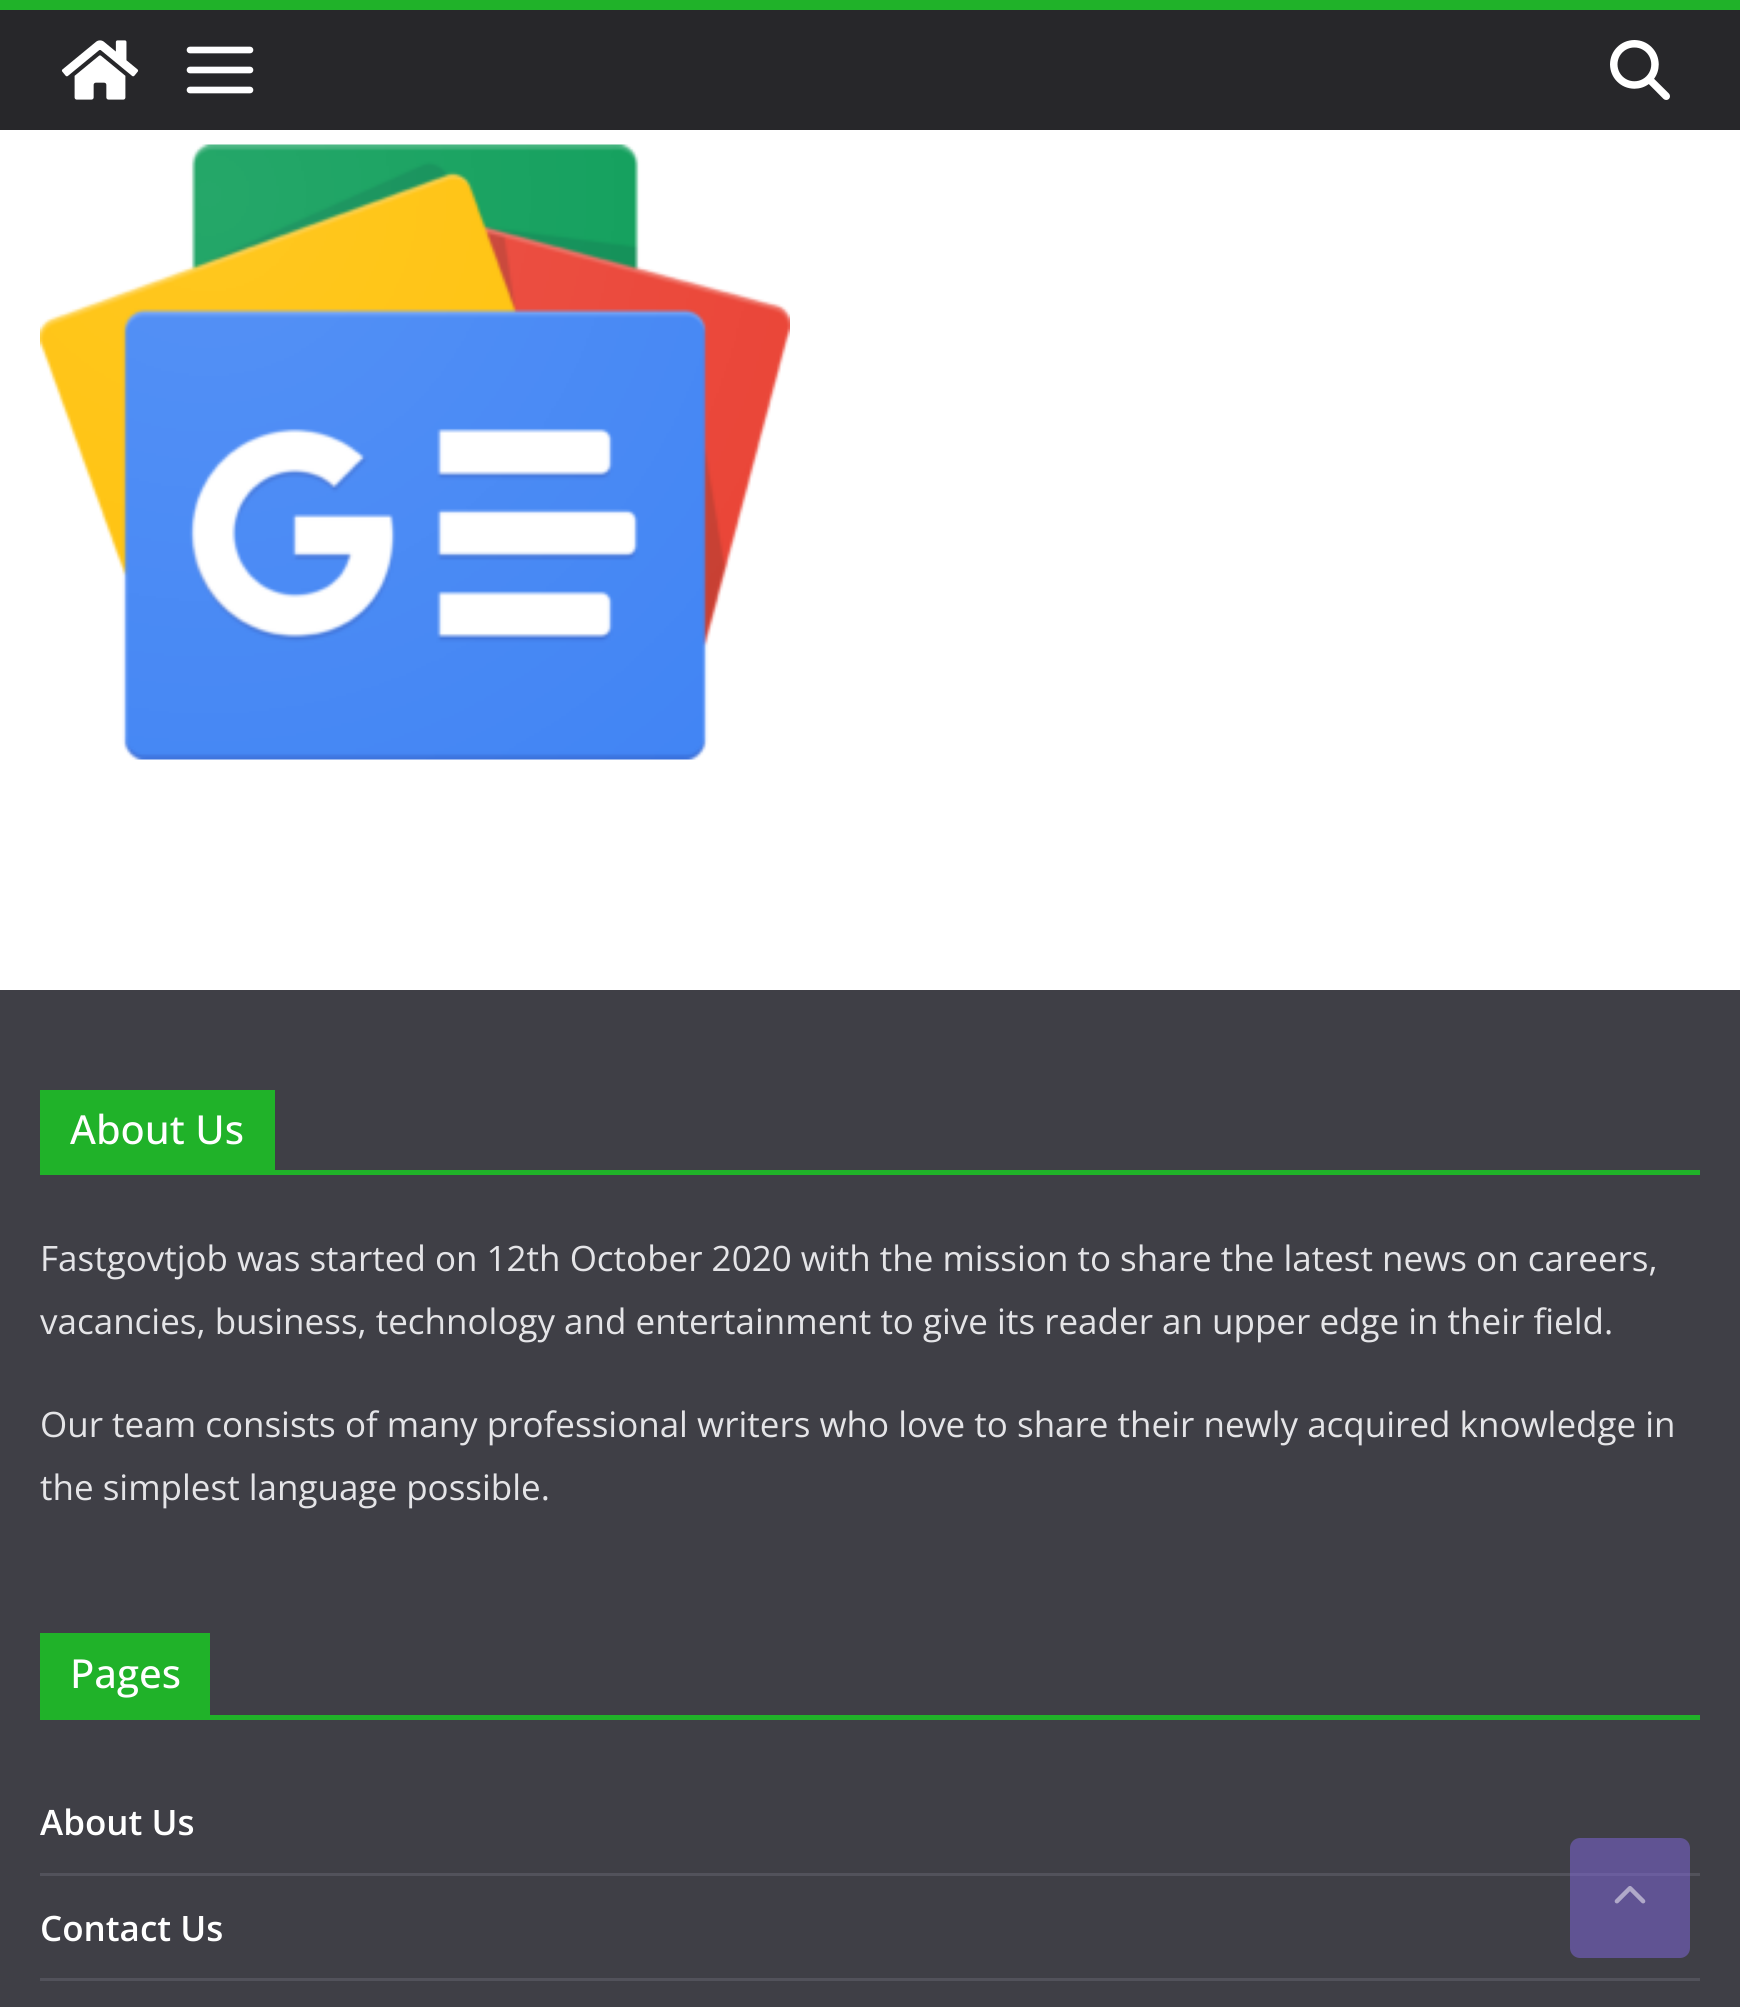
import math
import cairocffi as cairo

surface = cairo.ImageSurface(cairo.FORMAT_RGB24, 1740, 2007)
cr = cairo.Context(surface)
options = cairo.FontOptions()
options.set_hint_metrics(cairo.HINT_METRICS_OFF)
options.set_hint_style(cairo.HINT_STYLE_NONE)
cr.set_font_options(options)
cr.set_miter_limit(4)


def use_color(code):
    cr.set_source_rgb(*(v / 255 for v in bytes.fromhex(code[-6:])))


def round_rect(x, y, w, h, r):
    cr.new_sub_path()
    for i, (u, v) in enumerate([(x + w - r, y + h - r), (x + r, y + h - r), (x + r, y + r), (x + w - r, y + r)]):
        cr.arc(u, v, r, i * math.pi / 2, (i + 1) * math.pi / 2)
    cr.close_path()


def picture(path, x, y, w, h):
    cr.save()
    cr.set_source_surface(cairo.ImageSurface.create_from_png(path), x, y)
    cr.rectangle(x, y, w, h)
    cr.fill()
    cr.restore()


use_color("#ffffff")
cr.paint()
use_color("#27272a")
cr.rectangle(0, 10, 1740, 120)
cr.fill()
use_color("#20b229")
cr.rectangle(0, 0, 1740, 10)
cr.fill()
picture("img1.png", 61, 40, 78, 60)
picture("img2.png", 186, 46, 68, 48)
picture("img3.png", 1610, 40, 60, 60)
picture("img4.png", 40, 144, 750, 616)
use_color("#3f3f46")
cr.rectangle(0, 990, 1740, 1017)
cr.fill()
use_color("#20b229")
cr.rectangle(40, 1170, 1660, 5)
cr.fill()
cr.rectangle(40, 1090, 235, 80)
cr.fill()
cr.select_font_face("Open Sans Medium")
cr.set_font_size(40)
use_color("#ffffff")
cr.move_to(70, 1144)
cr.show_text("About Us")
cr.select_font_face("Open Sans")
cr.set_font_size(35)
use_color("#e4e4e7")
cr.move_to(40, 1271)
cr.show_text("Fastgovtjob was started on 12th October 2020 with the mission to share the latest news on careers,")
cr.move_to(40, 1334)
cr.show_text("vacancies, business, technology and entertainment to give its reader an upper edge in their field.")
cr.move_to(40, 1437)
cr.show_text("Our team consists of many professional writers who love to share their newly acquired knowledge in")
cr.move_to(40, 1500)
cr.show_text("the simplest language possible.")
use_color("#20b229")
cr.rectangle(40, 1715, 1660, 5)
cr.fill()
cr.rectangle(40, 1633, 170, 82)
cr.fill()
cr.select_font_face("Open Sans Medium")
cr.set_font_size(40)
use_color("#ffffff")
cr.move_to(70, 1688)
cr.show_text("Pages")
use_color("#52525b")
cr.rectangle(40, 1873, 1660, 3)
cr.fill()
cr.select_font_face("Open Sans SemiBold")
cr.set_font_size(35)
use_color("#ffffff")
cr.move_to(40, 1835)
cr.show_text("About Us")
use_color("#52525b")
cr.rectangle(40, 1978, 1660, 3)
cr.fill()
use_color("#ffffff")
cr.move_to(40, 1941)
cr.show_text("Contact Us")
cr.set_source_rgba(0.51, 0.412, 0.875, 0.5)
round_rect(1570, 1838, 120, 120, 10)
cr.fill()
picture("img5.png", 1614, 1886, 32, 18)
surface.write_to_png("result.png")
